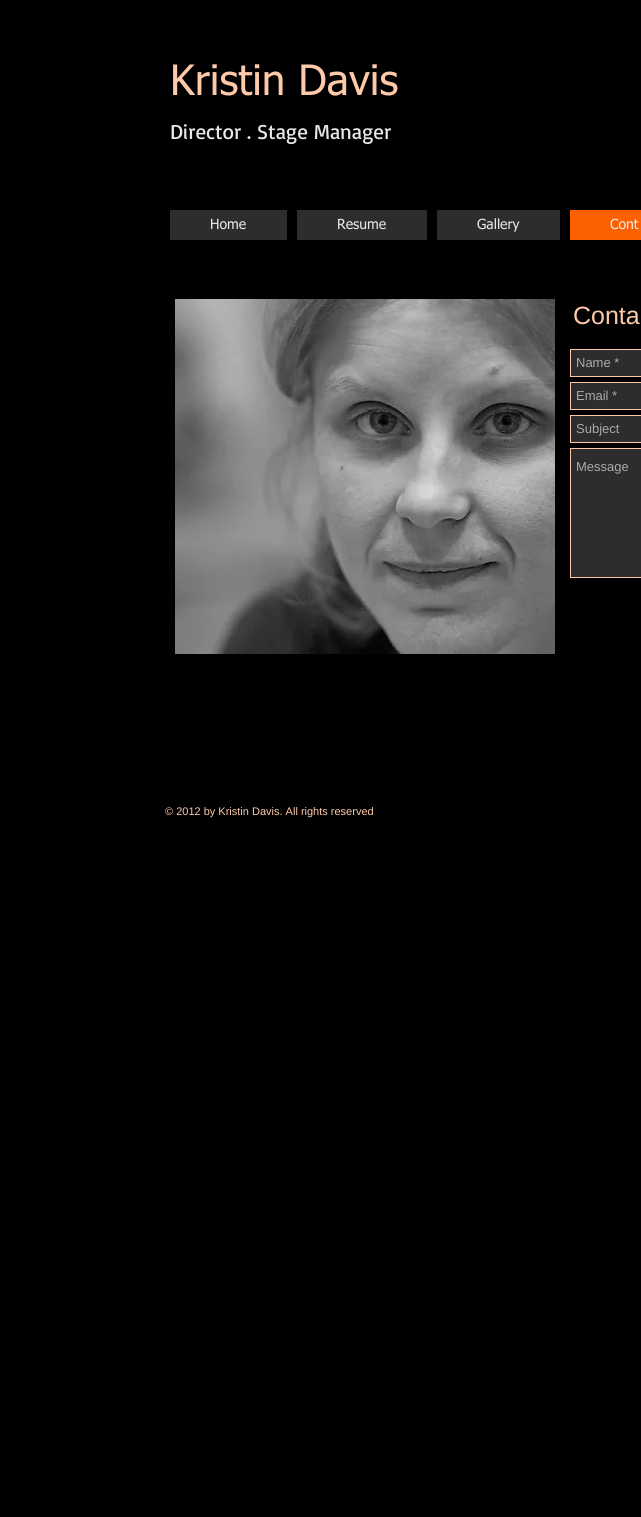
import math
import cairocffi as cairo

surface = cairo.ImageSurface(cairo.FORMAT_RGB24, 641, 1517)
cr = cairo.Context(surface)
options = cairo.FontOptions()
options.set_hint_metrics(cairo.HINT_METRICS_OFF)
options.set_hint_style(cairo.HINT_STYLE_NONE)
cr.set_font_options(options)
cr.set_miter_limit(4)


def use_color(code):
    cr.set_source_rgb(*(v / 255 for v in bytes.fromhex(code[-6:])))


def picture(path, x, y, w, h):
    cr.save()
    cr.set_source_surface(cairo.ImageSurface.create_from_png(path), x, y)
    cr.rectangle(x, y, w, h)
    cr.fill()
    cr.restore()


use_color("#000000")
cr.paint()
cr.select_font_face("tahoma")
cr.set_font_size(42)
use_color("#fec9a9")
cr.move_to(170, 95)
cr.show_text("Kristin Davis")
cr.select_font_face("Basic")
cr.set_font_size(21)
use_color("#e8e8e8")
cr.move_to(170, 139)
cr.show_text("Director . Stage Manager")
use_color("#2d2d2d")
cr.rectangle(170, 210, 117, 30)
cr.fill()
cr.select_font_face("tahoma")
cr.set_font_size(14)
use_color("#e8e8e8")
cr.move_to(210, 229)
cr.show_text("Home")
use_color("#2d2d2d")
cr.rectangle(297, 210, 130, 30)
cr.fill()
use_color("#e8e8e8")
cr.move_to(337, 229)
cr.show_text("Resume")
use_color("#2d2d2d")
cr.rectangle(437, 210, 123, 30)
cr.fill()
use_color("#e8e8e8")
cr.move_to(477, 229)
cr.show_text("Gallery")
use_color("#fc6000")
cr.rectangle(570, 210, 71, 30)
cr.fill()
use_color("#e8e8e8")
cr.move_to(610, 229)
cr.show_text("Cont")
picture("img1.png", 175, 299, 380, 355)
cr.select_font_face("Liberation Sans")
cr.set_font_size(25)
use_color("#fec9a9")
cr.move_to(573, 324)
cr.show_text("Conta")
use_color("#2d2d2d")
cr.rectangle(570.5, 349.5, 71, 27)
cr.fill_preserve()
use_color("#fec9a9")
cr.set_line_width(1)
cr.stroke()
cr.set_font_size(13)
use_color("#a9a9a9")
cr.move_to(576, 367)
cr.show_text("Name *")
use_color("#2d2d2d")
cr.rectangle(570.5, 382.5, 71, 27)
cr.fill_preserve()
use_color("#fec9a9")
cr.stroke()
use_color("#a9a9a9")
cr.move_to(576, 400)
cr.show_text("Email *")
use_color("#2d2d2d")
cr.rectangle(570.5, 415.5, 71, 27)
cr.fill_preserve()
use_color("#fec9a9")
cr.stroke()
use_color("#a9a9a9")
cr.move_to(576, 433)
cr.show_text("Subject")
use_color("#2d2d2d")
cr.rectangle(570.5, 448.5, 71, 129)
cr.fill_preserve()
use_color("#fec9a9")
cr.stroke()
use_color("#a9a9a9")
cr.move_to(576, 471)
cr.show_text("Message")
cr.set_font_size(11)
use_color("#fec9a9")
cr.move_to(165, 815)
cr.show_text("© 2012 by Kristin Davis. All rights reserved")
surface.write_to_png("result.png")
